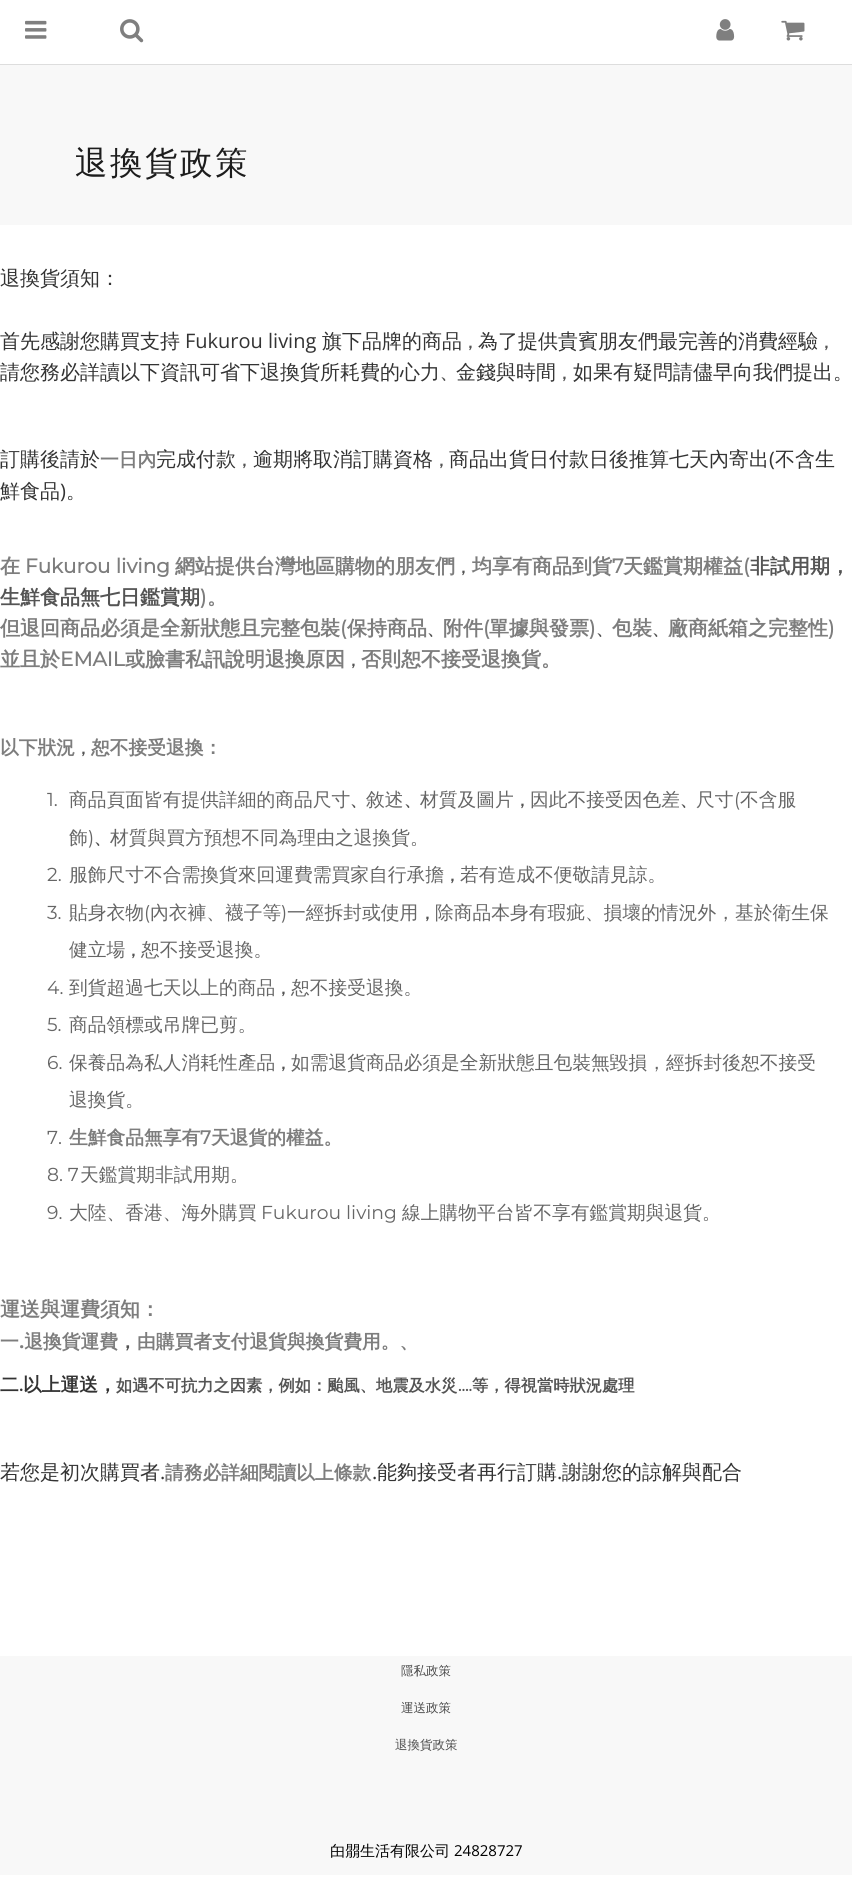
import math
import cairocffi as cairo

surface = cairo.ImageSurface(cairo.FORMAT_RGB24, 852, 1886)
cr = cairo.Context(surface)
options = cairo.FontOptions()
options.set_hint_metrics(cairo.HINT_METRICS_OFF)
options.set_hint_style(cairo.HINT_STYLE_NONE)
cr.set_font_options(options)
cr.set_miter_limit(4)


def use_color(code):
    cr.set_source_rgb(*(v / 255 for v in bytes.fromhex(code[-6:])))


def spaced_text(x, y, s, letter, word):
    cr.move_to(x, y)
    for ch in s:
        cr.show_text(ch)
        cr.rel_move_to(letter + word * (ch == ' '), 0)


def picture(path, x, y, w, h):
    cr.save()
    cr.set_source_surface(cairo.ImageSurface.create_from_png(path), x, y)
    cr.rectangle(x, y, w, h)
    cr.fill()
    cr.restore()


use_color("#ffffff")
cr.paint()
use_color("#dddddd")
cr.rectangle(0, 64, 852, 1)
cr.fill()
picture("img1.png", 25, 20, 22, 19)
picture("img2.png", 120, 19, 24, 24)
picture("img3.png", 716, 19, 19, 22)
picture("img4.png", 781, 20, 24, 21)
use_color("#f8f8f8")
cr.rectangle(0, 65, 852, 160)
cr.fill()
cr.select_font_face("WenQuanYi Zen Hei Medium")
cr.set_font_size(32.5)
use_color("#1d1d1d")
spaced_text(75, 174, "退換貨政策", 2.5, 0)
cr.set_font_size(20)
use_color("#333333")
cr.move_to(0, 285)
cr.show_text("退換貨須知：")
cr.move_to(0, 348)
cr.show_text("首先感謝您購買支持")
cr.select_font_face("Open Sans")
cr.move_to(185, 348)
cr.show_text("Fukurou living")
cr.select_font_face("WenQuanYi Zen Hei Medium")
cr.move_to(322, 348)
cr.show_text("旗下品牌的商品")
cr.select_font_face("WenQuanYi Zen Hei", cairo.FONT_SLANT_NORMAL, cairo.FONT_WEIGHT_BOLD)
cr.set_font_size(16.25)
use_color("#545454")
cr.move_to(462, 348)
cr.show_text("，")
cr.select_font_face("WenQuanYi Zen Hei Medium")
cr.set_font_size(20)
use_color("#333333")
cr.move_to(478, 348)
cr.show_text("為了提供貴賓朋友們最完善的消費經驗")
cr.select_font_face("WenQuanYi Zen Hei", cairo.FONT_SLANT_NORMAL, cairo.FONT_WEIGHT_BOLD)
cr.set_font_size(16.25)
use_color("#545454")
cr.move_to(818, 348)
cr.show_text("，")
cr.select_font_face("WenQuanYi Zen Hei Medium")
cr.set_font_size(20)
use_color("#333333")
cr.move_to(0, 379)
cr.show_text("請您務必詳讀以下資訊可省下退換貨所耗費的心力")
cr.select_font_face("WenQuanYi Zen Hei", cairo.FONT_SLANT_NORMAL, cairo.FONT_WEIGHT_BOLD)
cr.set_font_size(16.25)
use_color("#545454")
cr.move_to(440, 379)
cr.show_text("、")
cr.select_font_face("WenQuanYi Zen Hei Medium")
cr.set_font_size(20)
use_color("#333333")
cr.move_to(456, 379)
cr.show_text("金錢與時間")
cr.select_font_face("WenQuanYi Zen Hei", cairo.FONT_SLANT_NORMAL, cairo.FONT_WEIGHT_BOLD)
cr.set_font_size(16.25)
use_color("#545454")
cr.move_to(556, 379)
cr.show_text("，")
cr.select_font_face("WenQuanYi Zen Hei Medium")
cr.set_font_size(20)
use_color("#333333")
cr.move_to(573, 379)
cr.show_text("如果有疑問請儘早向我們提出。")
cr.move_to(0, 466)
cr.show_text("訂購後請於")
cr.select_font_face("WenQuanYi Zen Hei", cairo.FONT_SLANT_NORMAL, cairo.FONT_WEIGHT_BOLD)
cr.set_font_size(18.75)
use_color("#7d7d7d")
cr.move_to(100, 466)
cr.show_text("一日內")
cr.select_font_face("WenQuanYi Zen Hei Medium")
cr.set_font_size(20)
use_color("#333333")
cr.move_to(156, 466)
cr.show_text("完成付款")
cr.move_to(253, 466)
cr.show_text("逾期將取消訂購資格")
cr.move_to(449, 466)
cr.show_text("商品出貨日付款日後推算七天內寄出 不含生")
cr.select_font_face("WenQuanYi Zen Hei", cairo.FONT_SLANT_NORMAL, cairo.FONT_WEIGHT_BOLD)
cr.set_font_size(16.25)
use_color("#545454")
cr.move_to(236, 466)
cr.show_text("，")
cr.move_to(433, 466)
cr.show_text("，")
cr.select_font_face("Open Sans")
cr.set_font_size(20)
use_color("#333333")
cr.move_to(769, 466)
cr.show_text("(")
cr.select_font_face("WenQuanYi Zen Hei Medium")
cr.move_to(0, 498)
cr.show_text("鮮食品 。")
cr.select_font_face("Open Sans")
cr.move_to(60, 498)
cr.show_text(")")
cr.select_font_face("WenQuanYi Zen Hei", cairo.FONT_SLANT_NORMAL, cairo.FONT_WEIGHT_BOLD)
use_color("#7d7d7d")
cr.move_to(0, 573)
cr.show_text("在")
cr.select_font_face("Montserrat", cairo.FONT_SLANT_NORMAL, cairo.FONT_WEIGHT_BOLD)
cr.move_to(25, 573)
cr.show_text("Fukurou living")
cr.select_font_face("WenQuanYi Zen Hei", cairo.FONT_SLANT_NORMAL, cairo.FONT_WEIGHT_BOLD)
cr.move_to(175, 573)
cr.show_text("網站提供台灣地區購物的朋友們")
cr.move_to(472, 573)
cr.show_text("均享有商品到貨")
cr.select_font_face("Montserrat", cairo.FONT_SLANT_NORMAL, cairo.FONT_WEIGHT_BOLD)
cr.move_to(612, 573)
cr.show_text("7")
cr.select_font_face("WenQuanYi Zen Hei", cairo.FONT_SLANT_NORMAL, cairo.FONT_WEIGHT_BOLD)
cr.move_to(623, 573)
cr.show_text("天鑑賞期權益")
cr.select_font_face("Montserrat", cairo.FONT_SLANT_NORMAL, cairo.FONT_WEIGHT_BOLD)
cr.move_to(743, 573)
cr.show_text("(")
cr.select_font_face("WenQuanYi Zen Hei", cairo.FONT_SLANT_NORMAL, cairo.FONT_WEIGHT_BOLD)
use_color("#545454")
cr.move_to(750, 573)
cr.show_text("非試用期，")
cr.set_font_size(16.25)
cr.move_to(455, 573)
cr.show_text("，")
cr.set_font_size(20)
cr.move_to(0, 604)
cr.show_text("生鮮食品無七日鑑賞期")
cr.select_font_face("Montserrat", cairo.FONT_SLANT_NORMAL, cairo.FONT_WEIGHT_BOLD)
use_color("#7d7d7d")
cr.move_to(200, 604)
cr.show_text(")")
cr.select_font_face("WenQuanYi Zen Hei", cairo.FONT_SLANT_NORMAL, cairo.FONT_WEIGHT_BOLD)
cr.move_to(207, 604)
cr.show_text("。")
cr.move_to(0, 635)
cr.show_text("但退回商品必須是全新狀態且完整包裝")
cr.select_font_face("Montserrat", cairo.FONT_SLANT_NORMAL, cairo.FONT_WEIGHT_BOLD)
cr.move_to(340, 635)
cr.show_text("(")
cr.select_font_face("WenQuanYi Zen Hei", cairo.FONT_SLANT_NORMAL, cairo.FONT_WEIGHT_BOLD)
cr.move_to(347, 635)
cr.show_text("保持商品")
cr.set_font_size(16.25)
use_color("#545454")
cr.move_to(427, 635)
cr.show_text("、")
cr.set_font_size(20)
use_color("#7d7d7d")
cr.move_to(443, 635)
cr.show_text("附件")
cr.select_font_face("Montserrat", cairo.FONT_SLANT_NORMAL, cairo.FONT_WEIGHT_BOLD)
cr.move_to(483, 635)
cr.show_text("(")
cr.select_font_face("WenQuanYi Zen Hei", cairo.FONT_SLANT_NORMAL, cairo.FONT_WEIGHT_BOLD)
cr.move_to(489, 635)
cr.show_text("單據與發票")
cr.select_font_face("Montserrat", cairo.FONT_SLANT_NORMAL, cairo.FONT_WEIGHT_BOLD)
cr.move_to(589, 635)
cr.show_text(")")
cr.select_font_face("WenQuanYi Zen Hei", cairo.FONT_SLANT_NORMAL, cairo.FONT_WEIGHT_BOLD)
cr.set_font_size(16.25)
use_color("#545454")
cr.move_to(596, 635)
cr.show_text("、")
cr.set_font_size(20)
use_color("#7d7d7d")
cr.move_to(612, 635)
cr.show_text("包裝")
cr.set_font_size(16.25)
use_color("#545454")
cr.move_to(652, 635)
cr.show_text("、")
cr.set_font_size(20)
use_color("#7d7d7d")
cr.move_to(668, 635)
cr.show_text("廠商紙箱之完整性")
cr.select_font_face("Montserrat", cairo.FONT_SLANT_NORMAL, cairo.FONT_WEIGHT_BOLD)
cr.move_to(828, 635)
cr.show_text(")")
cr.select_font_face("WenQuanYi Zen Hei", cairo.FONT_SLANT_NORMAL, cairo.FONT_WEIGHT_BOLD)
cr.move_to(0, 666)
cr.show_text("並且於")
cr.select_font_face("Montserrat", cairo.FONT_SLANT_NORMAL, cairo.FONT_WEIGHT_BOLD)
cr.move_to(60, 666)
cr.show_text("EMAIL")
cr.select_font_face("WenQuanYi Zen Hei", cairo.FONT_SLANT_NORMAL, cairo.FONT_WEIGHT_BOLD)
cr.move_to(125, 666)
cr.show_text("或臉書私訊說明退換原因")
cr.move_to(361, 666)
cr.show_text("否則恕不接受退換貨。")
cr.set_font_size(16.25)
use_color("#545454")
cr.move_to(345, 666)
cr.show_text("，")
cr.set_font_size(18.75)
use_color("#7d7d7d")
cr.move_to(0, 754)
cr.show_text("以下狀況")
cr.set_font_size(16.25)
use_color("#545454")
cr.move_to(75, 754)
cr.show_text("，")
cr.set_font_size(18.75)
use_color("#7d7d7d")
cr.move_to(91, 754)
cr.show_text("恕不接受退換：")
cr.select_font_face("Montserrat")
use_color("#666666")
cr.move_to(47, 806)
cr.show_text("1.")
cr.select_font_face("WenQuanYi Zen Hei Medium")
cr.move_to(69, 806)
cr.show_text("商品頁面皆有提供詳細的商品尺寸")
cr.select_font_face("WenQuanYi Zen Hei", cairo.FONT_SLANT_NORMAL, cairo.FONT_WEIGHT_BOLD)
cr.set_font_size(16.25)
use_color("#545454")
cr.move_to(350, 806)
cr.show_text("、")
cr.select_font_face("WenQuanYi Zen Hei Medium")
cr.set_font_size(18.75)
use_color("#666666")
cr.move_to(366, 806)
cr.show_text("敘述")
cr.select_font_face("WenQuanYi Zen Hei", cairo.FONT_SLANT_NORMAL, cairo.FONT_WEIGHT_BOLD)
cr.set_font_size(16.25)
use_color("#545454")
cr.move_to(404, 806)
cr.show_text("、")
cr.select_font_face("WenQuanYi Zen Hei Medium")
cr.set_font_size(18.75)
use_color("#666666")
cr.move_to(420, 806)
cr.show_text("材質及圖片")
cr.select_font_face("WenQuanYi Zen Hei", cairo.FONT_SLANT_NORMAL, cairo.FONT_WEIGHT_BOLD)
cr.set_font_size(16.25)
use_color("#545454")
cr.move_to(514, 806)
cr.show_text("，")
cr.select_font_face("WenQuanYi Zen Hei Medium")
cr.set_font_size(18.75)
use_color("#666666")
cr.move_to(530, 806)
cr.show_text("因此不接受因色差")
cr.select_font_face("WenQuanYi Zen Hei", cairo.FONT_SLANT_NORMAL, cairo.FONT_WEIGHT_BOLD)
cr.set_font_size(16.25)
use_color("#545454")
cr.move_to(680, 806)
cr.show_text("、")
cr.select_font_face("WenQuanYi Zen Hei Medium")
cr.set_font_size(18.75)
use_color("#666666")
cr.move_to(696, 806)
cr.show_text("尺寸")
cr.select_font_face("Montserrat")
cr.move_to(734, 806)
cr.show_text("(")
cr.select_font_face("WenQuanYi Zen Hei Medium")
cr.move_to(740, 806)
cr.show_text("不含服")
cr.move_to(69, 844)
cr.show_text("飾")
cr.select_font_face("Montserrat")
cr.move_to(88, 844)
cr.show_text(")")
cr.select_font_face("WenQuanYi Zen Hei", cairo.FONT_SLANT_NORMAL, cairo.FONT_WEIGHT_BOLD)
cr.set_font_size(16.25)
use_color("#545454")
cr.move_to(94, 844)
cr.show_text("、")
cr.select_font_face("WenQuanYi Zen Hei Medium")
cr.set_font_size(18.75)
use_color("#666666")
cr.move_to(110, 844)
cr.show_text("材質與買方預想不同為理由之退換貨。")
cr.select_font_face("Montserrat")
cr.move_to(47, 881)
cr.show_text("2.")
cr.select_font_face("WenQuanYi Zen Hei Medium")
cr.move_to(69, 881)
cr.show_text("服飾尺寸不合需換貨來回運費需買家自行承擔")
cr.select_font_face("WenQuanYi Zen Hei", cairo.FONT_SLANT_NORMAL, cairo.FONT_WEIGHT_BOLD)
cr.set_font_size(16.25)
use_color("#545454")
cr.move_to(444, 881)
cr.show_text("，")
cr.select_font_face("WenQuanYi Zen Hei Medium")
cr.set_font_size(18.75)
use_color("#666666")
cr.move_to(460, 881)
cr.show_text("若有造成不便敬請見諒。")
cr.select_font_face("Montserrat")
cr.move_to(47, 919)
cr.show_text("3.")
cr.select_font_face("WenQuanYi Zen Hei Medium")
cr.move_to(69, 919)
cr.show_text("貼身衣物")
cr.select_font_face("Montserrat")
cr.move_to(144, 919)
cr.show_text("(")
cr.select_font_face("WenQuanYi Zen Hei Medium")
cr.move_to(150, 919)
cr.show_text("內衣褲、襪子等")
cr.select_font_face("Montserrat")
cr.move_to(281, 919)
cr.show_text(")")
cr.select_font_face("WenQuanYi Zen Hei Medium")
cr.move_to(287, 919)
cr.show_text("一經拆封或使用")
cr.select_font_face("WenQuanYi Zen Hei", cairo.FONT_SLANT_NORMAL, cairo.FONT_WEIGHT_BOLD)
cr.set_font_size(16.25)
use_color("#545454")
cr.move_to(419, 919)
cr.show_text("，")
cr.select_font_face("WenQuanYi Zen Hei Medium")
cr.set_font_size(18.75)
use_color("#666666")
cr.move_to(435, 919)
cr.show_text("除商品本身有瑕疵、損壞的情況外，基於衛生保")
cr.move_to(69, 956)
cr.show_text("健立場")
cr.select_font_face("WenQuanYi Zen Hei", cairo.FONT_SLANT_NORMAL, cairo.FONT_WEIGHT_BOLD)
cr.set_font_size(16.25)
use_color("#545454")
cr.move_to(125, 956)
cr.show_text("，")
cr.select_font_face("WenQuanYi Zen Hei Medium")
cr.set_font_size(18.75)
use_color("#666666")
cr.move_to(141, 956)
cr.show_text("恕不接受退換。")
cr.select_font_face("Montserrat")
cr.move_to(47, 994)
cr.show_text("4.")
cr.select_font_face("WenQuanYi Zen Hei Medium")
cr.move_to(69, 994)
cr.show_text("到貨超過七天以上的商品")
cr.select_font_face("WenQuanYi Zen Hei", cairo.FONT_SLANT_NORMAL, cairo.FONT_WEIGHT_BOLD)
cr.set_font_size(16.25)
use_color("#545454")
cr.move_to(275, 994)
cr.show_text("，")
cr.select_font_face("WenQuanYi Zen Hei Medium")
cr.set_font_size(18.75)
use_color("#666666")
cr.move_to(291, 994)
cr.show_text("恕不接受退換。")
cr.select_font_face("Montserrat")
cr.move_to(47, 1031)
cr.show_text("5.")
cr.select_font_face("WenQuanYi Zen Hei Medium")
cr.move_to(69, 1031)
cr.show_text("商品領標或吊牌已剪。")
cr.select_font_face("Montserrat")
cr.move_to(47, 1069)
cr.show_text("6.")
cr.select_font_face("WenQuanYi Zen Hei Medium")
cr.move_to(69, 1069)
cr.show_text("保養品為私人消耗性產品")
cr.select_font_face("WenQuanYi Zen Hei", cairo.FONT_SLANT_NORMAL, cairo.FONT_WEIGHT_BOLD)
cr.set_font_size(16.25)
use_color("#545454")
cr.move_to(275, 1069)
cr.show_text("，")
cr.select_font_face("WenQuanYi Zen Hei Medium")
cr.set_font_size(18.75)
use_color("#666666")
cr.move_to(291, 1069)
cr.show_text("如需退貨商品必須是全新狀態且包裝無毀損，經拆封後恕不接受")
cr.move_to(69, 1106)
cr.show_text("退換貨。")
cr.select_font_face("Montserrat")
cr.move_to(47, 1144)
cr.show_text("7.")
cr.select_font_face("WenQuanYi Zen Hei", cairo.FONT_SLANT_NORMAL, cairo.FONT_WEIGHT_BOLD)
use_color("#7d7d7d")
cr.move_to(69, 1144)
cr.show_text("生鮮食品無享有")
cr.select_font_face("Montserrat", cairo.FONT_SLANT_NORMAL, cairo.FONT_WEIGHT_BOLD)
cr.move_to(200, 1144)
cr.show_text("7")
cr.select_font_face("WenQuanYi Zen Hei", cairo.FONT_SLANT_NORMAL, cairo.FONT_WEIGHT_BOLD)
cr.move_to(211, 1144)
cr.show_text("天退貨的權益。")
cr.select_font_face("Montserrat")
use_color("#666666")
cr.move_to(47, 1181)
cr.show_text("8. 7")
cr.select_font_face("WenQuanYi Zen Hei Medium")
cr.move_to(80, 1181)
cr.show_text("天鑑賞期非試用期。")
cr.select_font_face("Montserrat")
cr.move_to(47, 1219)
cr.show_text("9.")
cr.select_font_face("WenQuanYi Zen Hei Medium")
cr.move_to(69, 1219)
cr.show_text("大陸、香港、海外購買")
cr.select_font_face("Montserrat")
cr.move_to(261, 1219)
cr.show_text("Fukurou living")
cr.select_font_face("WenQuanYi Zen Hei Medium")
cr.move_to(402, 1219)
cr.show_text("線上購物平台皆不享有鑑賞期與退貨。")
cr.select_font_face("WenQuanYi Zen Hei", cairo.FONT_SLANT_NORMAL, cairo.FONT_WEIGHT_BOLD)
cr.set_font_size(20)
use_color("#7d7d7d")
cr.move_to(0, 1316)
cr.show_text("運送與運費須知：")
cr.set_font_size(18.75)
cr.move_to(0, 1348)
cr.show_text("一 退換貨運費")
cr.move_to(137, 1348)
cr.show_text("由購買者支付退貨與換貨費用。、")
cr.select_font_face("Open Sans", cairo.FONT_SLANT_NORMAL, cairo.FONT_WEIGHT_BOLD)
cr.move_to(19, 1348)
cr.show_text(".")
cr.select_font_face("WenQuanYi Zen Hei", cairo.FONT_SLANT_NORMAL, cairo.FONT_WEIGHT_BOLD)
use_color("#545454")
cr.move_to(118, 1348)
cr.show_text("，")
use_color("#333333")
cr.move_to(0, 1391)
cr.show_text("二")
cr.select_font_face("Montserrat", cairo.FONT_SLANT_NORMAL, cairo.FONT_WEIGHT_BOLD)
cr.move_to(19, 1391)
cr.show_text(".")
cr.select_font_face("WenQuanYi Zen Hei", cairo.FONT_SLANT_NORMAL, cairo.FONT_WEIGHT_BOLD)
cr.move_to(23, 1391)
cr.show_text("以上運送，")
cr.set_font_size(16.25)
use_color("#545454")
cr.move_to(116, 1391)
cr.show_text("如遇不可抗力之因素，例如：颱風、地震及水災")
cr.select_font_face("Montserrat", cairo.FONT_SLANT_NORMAL, cairo.FONT_WEIGHT_BOLD)
cr.move_to(458, 1391)
cr.show_text("….")
cr.select_font_face("WenQuanYi Zen Hei", cairo.FONT_SLANT_NORMAL, cairo.FONT_WEIGHT_BOLD)
cr.move_to(472, 1391)
cr.show_text("等，得視當時狀況處理")
cr.select_font_face("WenQuanYi Zen Hei Medium")
cr.set_font_size(20)
use_color("#333333")
cr.move_to(0, 1479)
cr.show_text("若您是初次購買者")
cr.select_font_face("Open Sans")
cr.move_to(160, 1479)
cr.show_text(".")
cr.select_font_face("WenQuanYi Zen Hei", cairo.FONT_SLANT_NORMAL, cairo.FONT_WEIGHT_BOLD)
cr.set_font_size(18.75)
use_color("#7d7d7d")
cr.move_to(165, 1479)
cr.show_text("請務必詳細閱讀以上條款")
cr.select_font_face("Open Sans")
cr.set_font_size(20)
use_color("#333333")
cr.move_to(372, 1479)
cr.show_text(".")
cr.select_font_face("WenQuanYi Zen Hei Medium")
cr.move_to(377, 1479)
cr.show_text("能夠接受者再行訂購")
cr.select_font_face("Open Sans")
cr.move_to(557, 1479)
cr.show_text(".")
cr.select_font_face("WenQuanYi Zen Hei Medium")
cr.move_to(562, 1479)
cr.show_text("謝謝您的諒解與配合")
use_color("#f8f8f8")
cr.rectangle(0, 1656, 852, 219)
cr.fill()
cr.set_font_size(12.5)
use_color("#4e4e4e")
cr.move_to(401, 1675)
cr.show_text("隱私政策")
cr.move_to(401, 1712)
cr.show_text("運送政策")
cr.move_to(395, 1749)
cr.show_text("退換貨政策")
cr.set_font_size(15)
use_color("#000000")
cr.move_to(330, 1856)
cr.show_text("甶朤生活有限公司")
cr.select_font_face("Open Sans")
cr.move_to(454, 1856)
cr.show_text("24828727")
surface.write_to_png("result.png")
